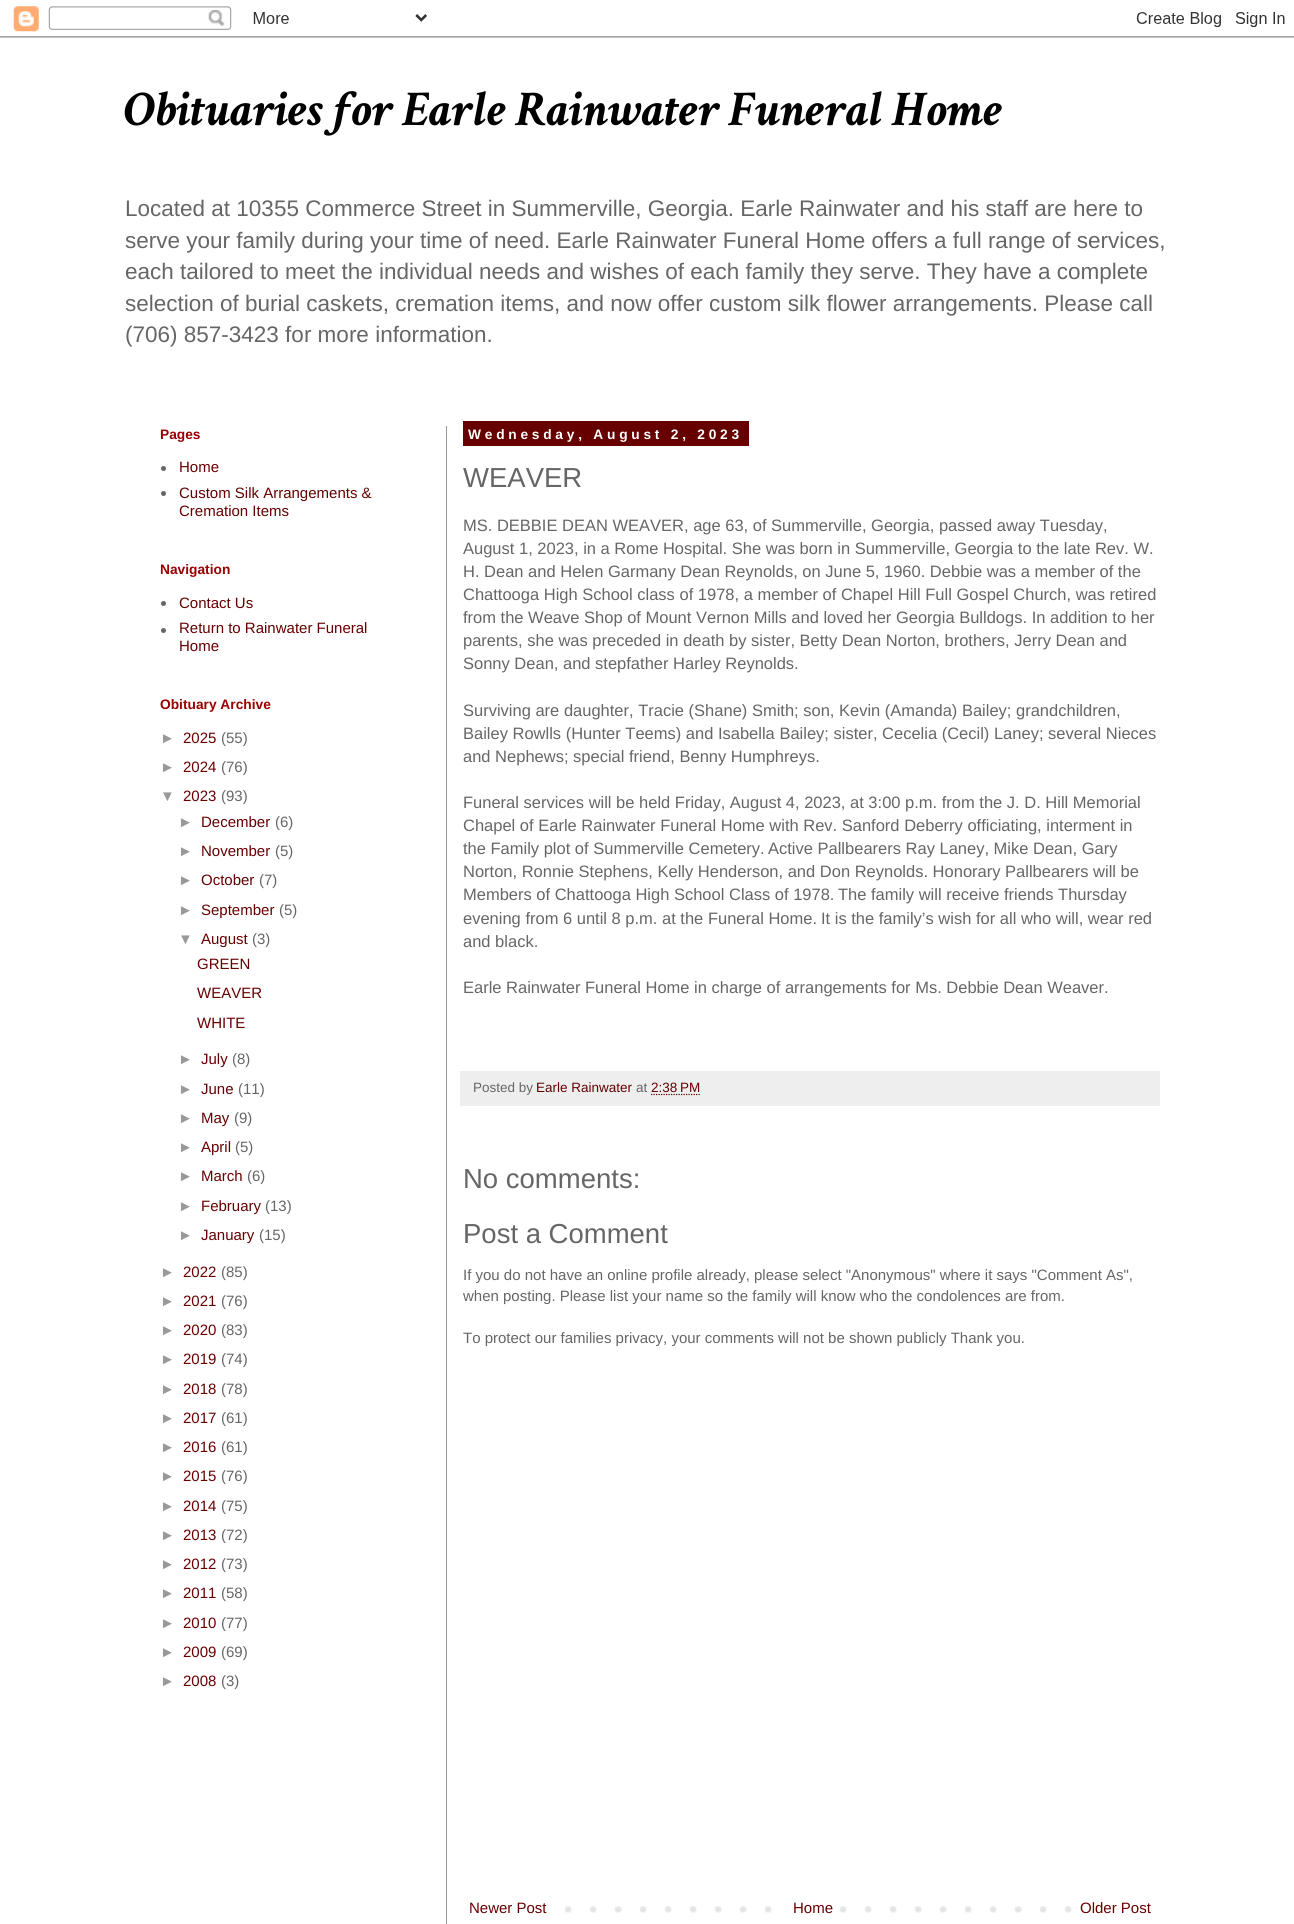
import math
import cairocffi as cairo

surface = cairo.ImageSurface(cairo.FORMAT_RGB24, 1294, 1924)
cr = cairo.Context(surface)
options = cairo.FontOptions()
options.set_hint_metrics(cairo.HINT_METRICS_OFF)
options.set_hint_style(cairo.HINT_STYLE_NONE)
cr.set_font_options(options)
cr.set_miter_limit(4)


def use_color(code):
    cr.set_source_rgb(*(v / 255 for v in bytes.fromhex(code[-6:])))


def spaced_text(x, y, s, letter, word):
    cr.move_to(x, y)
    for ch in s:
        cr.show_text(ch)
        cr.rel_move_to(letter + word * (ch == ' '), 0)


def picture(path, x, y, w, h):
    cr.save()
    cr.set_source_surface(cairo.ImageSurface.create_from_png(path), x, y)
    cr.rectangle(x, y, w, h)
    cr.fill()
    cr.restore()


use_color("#ffffff")
cr.paint()
picture("img1.png", 0, 6, 1294, 32)
cr.select_font_face("Crimson Text", cairo.FONT_SLANT_ITALIC, cairo.FONT_WEIGHT_BOLD)
cr.set_font_size(50)
use_color("#000000")
cr.move_to(123, 125)
cr.show_text("Obituaries for Earle Rainwater Funeral Home")
cr.select_font_face("Liberation Sans")
cr.set_font_size(22.5)
use_color("#666666")
cr.move_to(125, 216)
cr.show_text("Located at 10355 Commerce Street in Summerville, Georgia. Earle Rainwater and his staff are here to")
cr.move_to(125, 248)
cr.show_text("serve your family during your time of need. Earle Rainwater Funeral Home offers a full range of services,")
cr.move_to(125, 279)
cr.show_text("each tailored to meet the individual needs and wishes of each family they serve. They have a complete")
cr.move_to(125, 311)
cr.show_text("selection of burial caskets, cremation items, and now offer custom silk flower arrangements. Please call")
cr.move_to(125, 342)
cr.show_text("(706) 857-3423 for more information.")
use_color("#999999")
cr.rectangle(446, 426, 1, 1498)
cr.fill()
cr.select_font_face("Liberation Sans", cairo.FONT_SLANT_NORMAL, cairo.FONT_WEIGHT_BOLD)
cr.set_font_size(13.75)
use_color("#990000")
cr.move_to(160, 439)
cr.show_text("Pages")
use_color("#666666")
cr.new_path()
cr.arc(163.5, 468.5, 2.5, 0, 2 * math.pi)
cr.fill()
cr.select_font_face("Liberation Sans")
cr.set_font_size(15)
use_color("#660000")
cr.move_to(179, 472)
cr.show_text("Home")
use_color("#666666")
cr.new_path()
cr.arc(163.5, 493.5, 2.5, 0, 2 * math.pi)
cr.fill()
use_color("#660000")
cr.move_to(179, 498)
cr.show_text("Custom Silk Arrangements &")
cr.move_to(179, 516)
cr.show_text("Cremation Items")
cr.select_font_face("Liberation Sans", cairo.FONT_SLANT_NORMAL, cairo.FONT_WEIGHT_BOLD)
cr.set_font_size(13.75)
use_color("#990000")
cr.move_to(160, 574)
cr.show_text("Navigation")
use_color("#666666")
cr.new_path()
cr.arc(163.5, 603.5, 2.5, 0, 2 * math.pi)
cr.fill()
cr.select_font_face("Liberation Sans")
cr.set_font_size(15)
use_color("#660000")
cr.move_to(179, 608)
cr.show_text("Contact Us")
use_color("#666666")
cr.new_path()
cr.arc(163.5, 630.5, 2.5, 0, 2 * math.pi)
cr.fill()
use_color("#660000")
cr.move_to(179, 633)
cr.show_text("Return to Rainwater Funeral")
cr.move_to(179, 651)
cr.show_text("Home")
cr.select_font_face("Liberation Sans", cairo.FONT_SLANT_NORMAL, cairo.FONT_WEIGHT_BOLD)
cr.set_font_size(13.75)
use_color("#990000")
cr.move_to(160, 709)
cr.show_text("Obituary Archive")
cr.select_font_face("Liberation Sans")
cr.set_font_size(15)
use_color("#999999")
cr.move_to(160, 743)
cr.show_text("►")
use_color("#660000")
cr.move_to(183, 743)
cr.show_text("2025")
use_color("#666666")
cr.move_to(221, 743)
cr.show_text("(55)")
use_color("#999999")
cr.move_to(160, 772)
cr.show_text("►")
use_color("#660000")
cr.move_to(183, 772)
cr.show_text("2024")
use_color("#666666")
cr.move_to(221, 772)
cr.show_text("(76)")
use_color("#999999")
cr.move_to(160, 801)
cr.show_text("▼")
use_color("#660000")
cr.move_to(183, 801)
cr.show_text("2023")
use_color("#666666")
cr.move_to(221, 801)
cr.show_text("(93)")
use_color("#999999")
cr.move_to(178, 827)
cr.show_text("►")
use_color("#660000")
cr.move_to(201, 827)
cr.show_text("December")
use_color("#666666")
cr.move_to(275, 827)
cr.show_text("(6)")
use_color("#999999")
cr.move_to(178, 856)
cr.show_text("►")
use_color("#660000")
cr.move_to(201, 856)
cr.show_text("November")
use_color("#666666")
cr.move_to(275, 856)
cr.show_text("(5)")
use_color("#999999")
cr.move_to(178, 885)
cr.show_text("►")
use_color("#660000")
cr.move_to(201, 885)
cr.show_text("October")
use_color("#666666")
cr.move_to(259, 885)
cr.show_text("(7)")
use_color("#999999")
cr.move_to(178, 915)
cr.show_text("►")
use_color("#660000")
cr.move_to(201, 915)
cr.show_text("September")
use_color("#666666")
cr.move_to(279, 915)
cr.show_text("(5)")
use_color("#999999")
cr.move_to(178, 944)
cr.show_text("▼")
use_color("#660000")
cr.move_to(201, 944)
cr.show_text("August")
use_color("#666666")
cr.move_to(252, 944)
cr.show_text("(3)")
use_color("#660000")
cr.move_to(197, 969)
cr.show_text("GREEN")
cr.move_to(197, 998)
cr.show_text("WEAVER")
cr.move_to(197, 1028)
cr.show_text("WHITE")
use_color("#999999")
cr.move_to(178, 1064)
cr.show_text("►")
use_color("#660000")
cr.move_to(201, 1064)
cr.show_text("July")
use_color("#666666")
cr.move_to(232, 1064)
cr.show_text("(8)")
use_color("#999999")
cr.move_to(178, 1094)
cr.show_text("►")
use_color("#660000")
cr.move_to(201, 1094)
cr.show_text("June")
use_color("#666666")
cr.move_to(238, 1094)
cr.show_text("(11)")
use_color("#999999")
cr.move_to(178, 1123)
cr.show_text("►")
use_color("#660000")
cr.move_to(201, 1123)
cr.show_text("May")
use_color("#666666")
cr.move_to(234, 1123)
cr.show_text("(9)")
use_color("#999999")
cr.move_to(178, 1152)
cr.show_text("►")
use_color("#660000")
cr.move_to(201, 1152)
cr.show_text("April")
use_color("#666666")
cr.move_to(235, 1152)
cr.show_text("(5)")
use_color("#999999")
cr.move_to(178, 1181)
cr.show_text("►")
use_color("#660000")
cr.move_to(201, 1181)
cr.show_text("March")
use_color("#666666")
cr.move_to(247, 1181)
cr.show_text("(6)")
use_color("#999999")
cr.move_to(178, 1211)
cr.show_text("►")
use_color("#660000")
cr.move_to(201, 1211)
cr.show_text("February")
use_color("#666666")
cr.move_to(265, 1211)
cr.show_text("(13)")
use_color("#999999")
cr.move_to(178, 1240)
cr.show_text("►")
use_color("#660000")
cr.move_to(201, 1240)
cr.show_text("January")
use_color("#666666")
cr.move_to(259, 1240)
cr.show_text("(15)")
use_color("#999999")
cr.move_to(160, 1277)
cr.show_text("►")
use_color("#660000")
cr.move_to(183, 1277)
cr.show_text("2022")
use_color("#666666")
cr.move_to(221, 1277)
cr.show_text("(85)")
use_color("#999999")
cr.move_to(160, 1306)
cr.show_text("►")
use_color("#660000")
cr.move_to(183, 1306)
cr.show_text("2021")
use_color("#666666")
cr.move_to(221, 1306)
cr.show_text("(76)")
use_color("#999999")
cr.move_to(160, 1335)
cr.show_text("►")
use_color("#660000")
cr.move_to(183, 1335)
cr.show_text("2020")
use_color("#666666")
cr.move_to(221, 1335)
cr.show_text("(83)")
use_color("#999999")
cr.move_to(160, 1364)
cr.show_text("►")
use_color("#660000")
cr.move_to(183, 1364)
cr.show_text("2019")
use_color("#666666")
cr.move_to(221, 1364)
cr.show_text("(74)")
use_color("#999999")
cr.move_to(160, 1394)
cr.show_text("►")
use_color("#660000")
cr.move_to(183, 1394)
cr.show_text("2018")
use_color("#666666")
cr.move_to(221, 1394)
cr.show_text("(78)")
use_color("#999999")
cr.move_to(160, 1423)
cr.show_text("►")
use_color("#660000")
cr.move_to(183, 1423)
cr.show_text("2017")
use_color("#666666")
cr.move_to(221, 1423)
cr.show_text("(61)")
use_color("#999999")
cr.move_to(160, 1452)
cr.show_text("►")
use_color("#660000")
cr.move_to(183, 1452)
cr.show_text("2016")
use_color("#666666")
cr.move_to(221, 1452)
cr.show_text("(61)")
use_color("#999999")
cr.move_to(160, 1481)
cr.show_text("►")
use_color("#660000")
cr.move_to(183, 1481)
cr.show_text("2015")
use_color("#666666")
cr.move_to(221, 1481)
cr.show_text("(76)")
use_color("#999999")
cr.move_to(160, 1511)
cr.show_text("►")
use_color("#660000")
cr.move_to(183, 1511)
cr.show_text("2014")
use_color("#666666")
cr.move_to(221, 1511)
cr.show_text("(75)")
use_color("#999999")
cr.move_to(160, 1540)
cr.show_text("►")
use_color("#660000")
cr.move_to(183, 1540)
cr.show_text("2013")
use_color("#666666")
cr.move_to(221, 1540)
cr.show_text("(72)")
use_color("#999999")
cr.move_to(160, 1569)
cr.show_text("►")
use_color("#660000")
cr.move_to(183, 1569)
cr.show_text("2012")
use_color("#666666")
cr.move_to(221, 1569)
cr.show_text("(73)")
use_color("#999999")
cr.move_to(160, 1598)
cr.show_text("►")
use_color("#660000")
cr.move_to(183, 1598)
cr.show_text("2011")
use_color("#666666")
cr.move_to(221, 1598)
cr.show_text("(58)")
use_color("#999999")
cr.move_to(160, 1628)
cr.show_text("►")
use_color("#660000")
cr.move_to(183, 1628)
cr.show_text("2010")
use_color("#666666")
cr.move_to(221, 1628)
cr.show_text("(77)")
use_color("#999999")
cr.move_to(160, 1657)
cr.show_text("►")
use_color("#660000")
cr.move_to(183, 1657)
cr.show_text("2009")
use_color("#666666")
cr.move_to(221, 1657)
cr.show_text("(69)")
use_color("#999999")
cr.move_to(160, 1686)
cr.show_text("►")
use_color("#660000")
cr.move_to(183, 1686)
cr.show_text("2008")
use_color("#666666")
cr.move_to(221, 1686)
cr.show_text("(3)")
use_color("#660000")
cr.rectangle(463, 421, 286, 25)
cr.fill()
cr.select_font_face("Liberation Sans", cairo.FONT_SLANT_NORMAL, cairo.FONT_WEIGHT_BOLD)
cr.set_font_size(13.75)
use_color("#ffffff")
spaced_text(468, 439, "Wednesday, August 2, 2023", 3.75, 0)
cr.select_font_face("Liberation Sans")
cr.set_font_size(27.5)
use_color("#666666")
cr.move_to(463, 487)
cr.show_text("WEAVER")
cr.set_font_size(16.5)
cr.move_to(463, 531)
cr.show_text("MS. DEBBIE DEAN WEAVER, age 63, of Summerville, Georgia, passed away Tuesday,")
cr.move_to(463, 554)
cr.show_text("August 1, 2023, in a Rome Hospital. She was born in Summerville, Georgia to the late Rev. W.")
cr.move_to(463, 577)
cr.show_text("H. Dean and Helen Garmany Dean Reynolds, on June 5, 1960. Debbie was a member of the")
cr.move_to(463, 600)
cr.show_text("Chattooga High School class of 1978, a member of Chapel Hill Full Gospel Church, was retired")
cr.move_to(463, 623)
cr.show_text("from the Weave Shop of Mount Vernon Mills and loved her Georgia Bulldogs. In addition to her")
cr.move_to(463, 646)
cr.show_text("parents, she was preceded in death by sister, Betty Dean Norton, brothers, Jerry Dean and")
cr.move_to(463, 669)
cr.show_text("Sonny Dean, and stepfather Harley Reynolds.")
cr.move_to(463, 716)
cr.show_text("Surviving are daughter, Tracie (Shane) Smith; son, Kevin (Amanda) Bailey; grandchildren,")
cr.move_to(463, 739)
cr.show_text("Bailey Rowlls (Hunter Teems) and Isabella Bailey; sister, Cecelia (Cecil) Laney; several Nieces")
cr.move_to(463, 762)
cr.show_text("and Nephews; special friend, Benny Humphreys.")
cr.move_to(463, 808)
cr.show_text("Funeral services will be held Friday, August 4, 2023, at 3:00 p.m. from the J. D. Hill Memorial")
cr.move_to(463, 831)
cr.show_text("Chapel of Earle Rainwater Funeral Home with Rev. Sanford Deberry officiating, interment in")
cr.move_to(463, 854)
cr.show_text("the Family plot of Summerville Cemetery.")
cr.move_to(768, 854)
cr.show_text("Active Pallbearers Ray Laney, Mike Dean, Gary")
cr.move_to(463, 877)
cr.show_text("Norton, Ronnie Stephens, Kelly Henderson, and Don Reynolds. Honorary Pallbearers will be")
cr.move_to(463, 900)
cr.show_text("Members of Chattooga High School Class of 1978.")
cr.move_to(838, 900)
cr.show_text("The family will receive friends Thursday")
cr.move_to(463, 924)
cr.show_text("evening from 6 until 8 p.m. at the Funeral Home.")
cr.move_to(821, 924)
cr.show_text("It is the family’s wish for all who will, wear red")
cr.move_to(463, 947)
cr.show_text("and black.")
cr.move_to(463, 993)
cr.show_text("Earle Rainwater Funeral Home in charge of arrangements for Ms. Debbie Dean Weaver.")
use_color("#eeeeee")
cr.rectangle(460, 1071, 700, 35)
cr.fill()
cr.set_font_size(13.5)
use_color("#666666")
cr.move_to(473, 1092)
cr.show_text("Posted by")
use_color("#660000")
cr.move_to(536, 1092)
cr.show_text("Earle Rainwater")
use_color("#666666")
cr.move_to(636, 1092)
cr.show_text("at")
use_color("#660000")
cr.move_to(651, 1092)
cr.show_text("2:38 PM")
cr.new_path()
cr.move_to(651, 1094.5)
cr.line_to(700.5, 1094.5)
cr.set_line_width(1.2)
cr.set_dash([1.25, 1.25])
cr.stroke()
cr.set_font_size(27.5)
use_color("#666666")
cr.move_to(463, 1188)
cr.show_text("No comments:")
cr.move_to(463, 1243)
cr.show_text("Post a Comment")
cr.set_font_size(15)
cr.move_to(463, 1280)
cr.show_text("If you do not have an online profile already, please select \"Anonymous\" where it says \"Comment As\",")
cr.move_to(463, 1301)
cr.show_text("when posting. Please list your name so the family will know who the condolences are from.")
cr.move_to(463, 1343)
cr.show_text("To protect our families privacy, your comments will not be shown publicly Thank you.")
picture("img2.png", 565, 1906, 507, 7)
use_color("#660000")
cr.move_to(469, 1913)
cr.show_text("Newer Post")
use_color("#ffffff")
cr.rectangle(789, 1906, 51, 7)
cr.fill()
use_color("#660000")
cr.move_to(793, 1913)
cr.show_text("Home")
cr.move_to(1080, 1913)
cr.show_text("Older Post")
surface.write_to_png("result.png")
